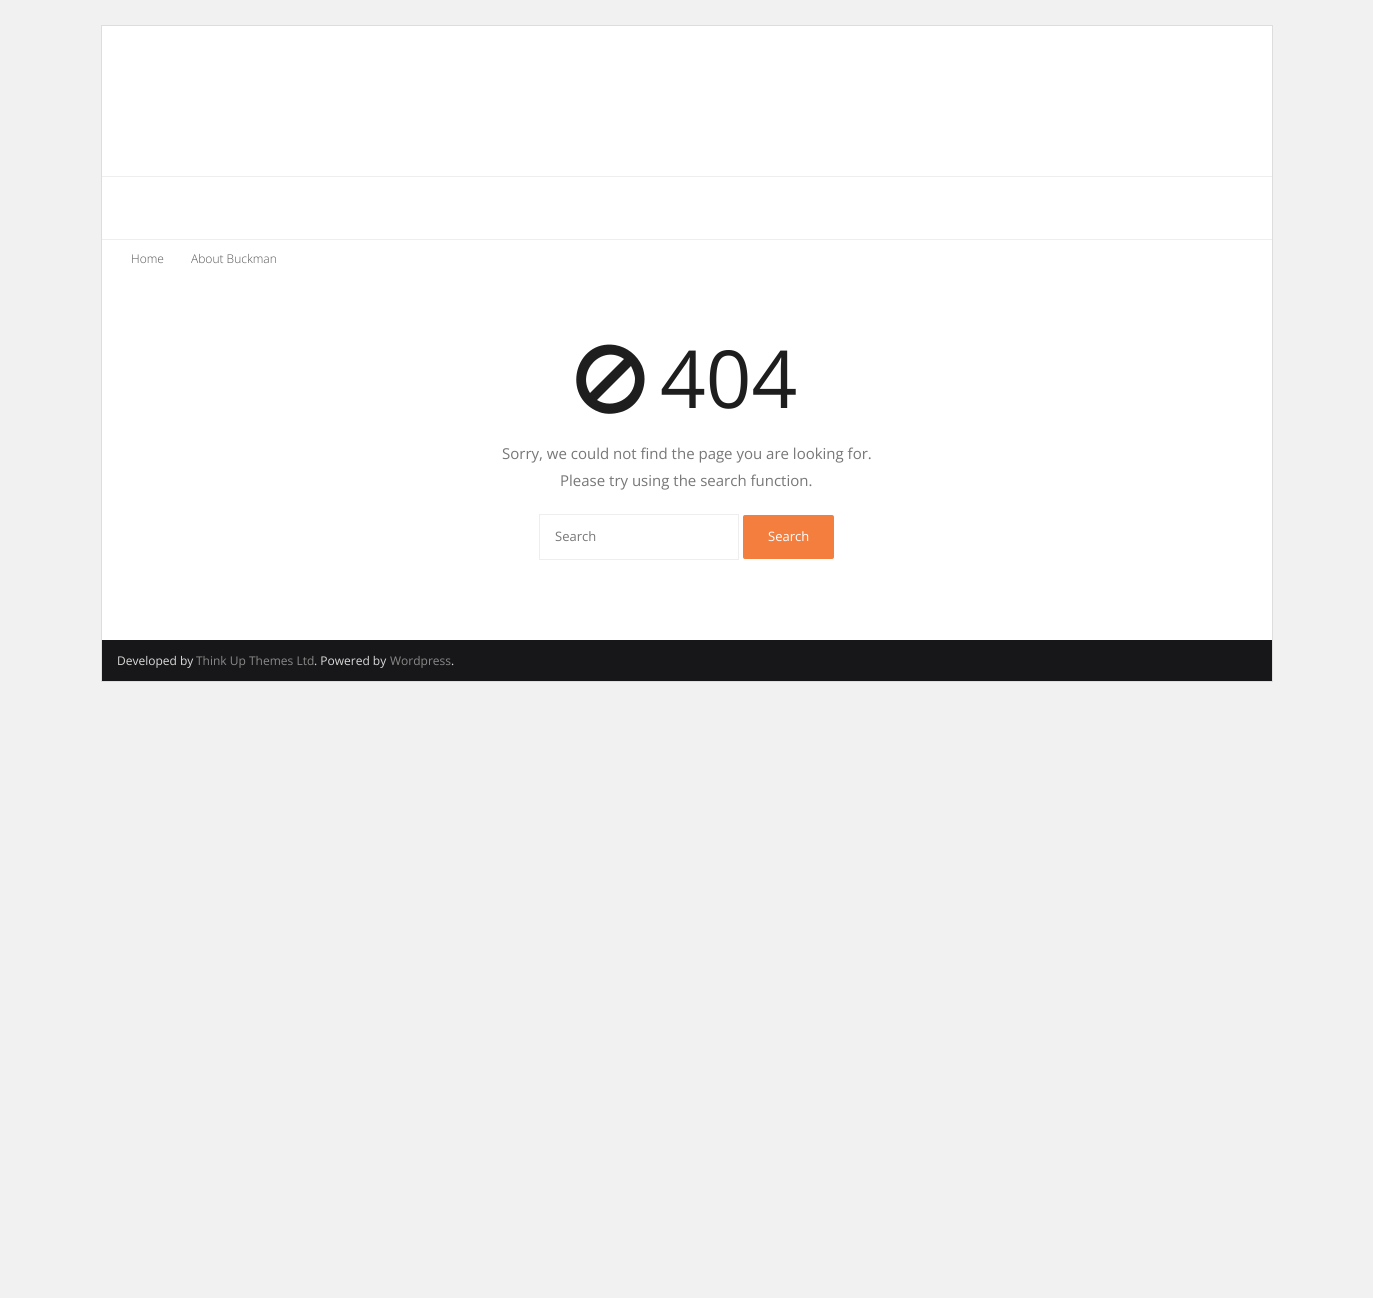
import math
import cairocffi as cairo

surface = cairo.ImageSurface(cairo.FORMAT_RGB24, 1373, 1298)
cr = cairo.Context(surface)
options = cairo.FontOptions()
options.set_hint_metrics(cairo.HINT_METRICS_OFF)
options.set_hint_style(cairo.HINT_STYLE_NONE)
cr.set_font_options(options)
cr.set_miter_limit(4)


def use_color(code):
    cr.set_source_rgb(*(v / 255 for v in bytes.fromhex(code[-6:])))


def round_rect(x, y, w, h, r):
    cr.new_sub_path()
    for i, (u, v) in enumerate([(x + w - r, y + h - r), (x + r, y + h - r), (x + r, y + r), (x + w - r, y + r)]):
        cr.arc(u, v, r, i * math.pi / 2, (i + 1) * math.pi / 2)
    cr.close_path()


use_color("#f1f1f1")
cr.paint()
use_color("#ffffff")
cr.rectangle(102, 26, 1170, 614)
cr.fill()
cr.rectangle(101.5, 25.5, 1171, 656)
use_color("#dddddd")
cr.set_line_width(1)
cr.stroke()
use_color("#eeeeee")
cr.rectangle(102, 176, 1170, 1)
cr.fill()
cr.rectangle(102, 239, 1170, 1)
cr.fill()
cr.select_font_face("Open Sans Light")
cr.set_font_size(12)
use_color("#555555")
cr.move_to(131, 263)
cr.show_text("Home")
cr.move_to(191, 263)
cr.show_text("About Buckman")
use_color("#1e1e1e")
cr.new_path()
cr.move_to(635, 379)
cr.curve_to(635, 375, 633, 370, 631, 366)
cr.line_to(597, 400)
cr.curve_to(613, 410, 635, 398, 635, 379)
cr.close_path()
cr.move_to(590, 393)
cr.line_to(624, 359)
cr.curve_to(602, 344, 576, 371, 590, 393)
cr.close_path()
cr.move_to(642, 366)
cr.curve_to(649, 383, 641, 404, 624, 411)
cr.curve_to(616, 414, 607, 415, 599, 412)
cr.curve_to(560, 397, 575, 339, 615, 345)
cr.curve_to(627, 347, 637, 355, 642, 366)
cr.close_path()
cr.fill()
cr.select_font_face("Open Sans")
cr.set_font_size(80)
cr.move_to(660, 408)
cr.show_text("404")
cr.set_font_size(15)
use_color("#777777")
cr.move_to(502, 459)
cr.show_text("Sorry, we could not find the page you are looking for.")
cr.move_to(560, 486)
cr.show_text("Please try using the search function.")
cr.rectangle(539.5, 514.5, 199, 45)
use_color("#efeeee")
cr.stroke()
cr.set_font_size(13)
use_color("#777777")
cr.move_to(555, 541)
cr.show_text("Search")
use_color("#f47e3e")
round_rect(743, 515, 91, 44, 2)
cr.fill()
use_color("#ffffff")
cr.move_to(768, 541)
cr.show_text("Search")
use_color("#171719")
cr.rectangle(102, 640, 1170, 41)
cr.fill()
cr.set_font_size(12)
use_color("#dadada")
cr.move_to(117, 665)
cr.show_text("Developed by")
use_color("#888888")
cr.move_to(196, 665)
cr.show_text("Think Up Themes Ltd")
use_color("#dadada")
cr.move_to(314, 665)
cr.show_text(". Powered by")
use_color("#888888")
cr.move_to(390, 665)
cr.show_text("Wordpress")
use_color("#dadada")
cr.move_to(451, 665)
cr.show_text(".")
surface.write_to_png("result.png")
